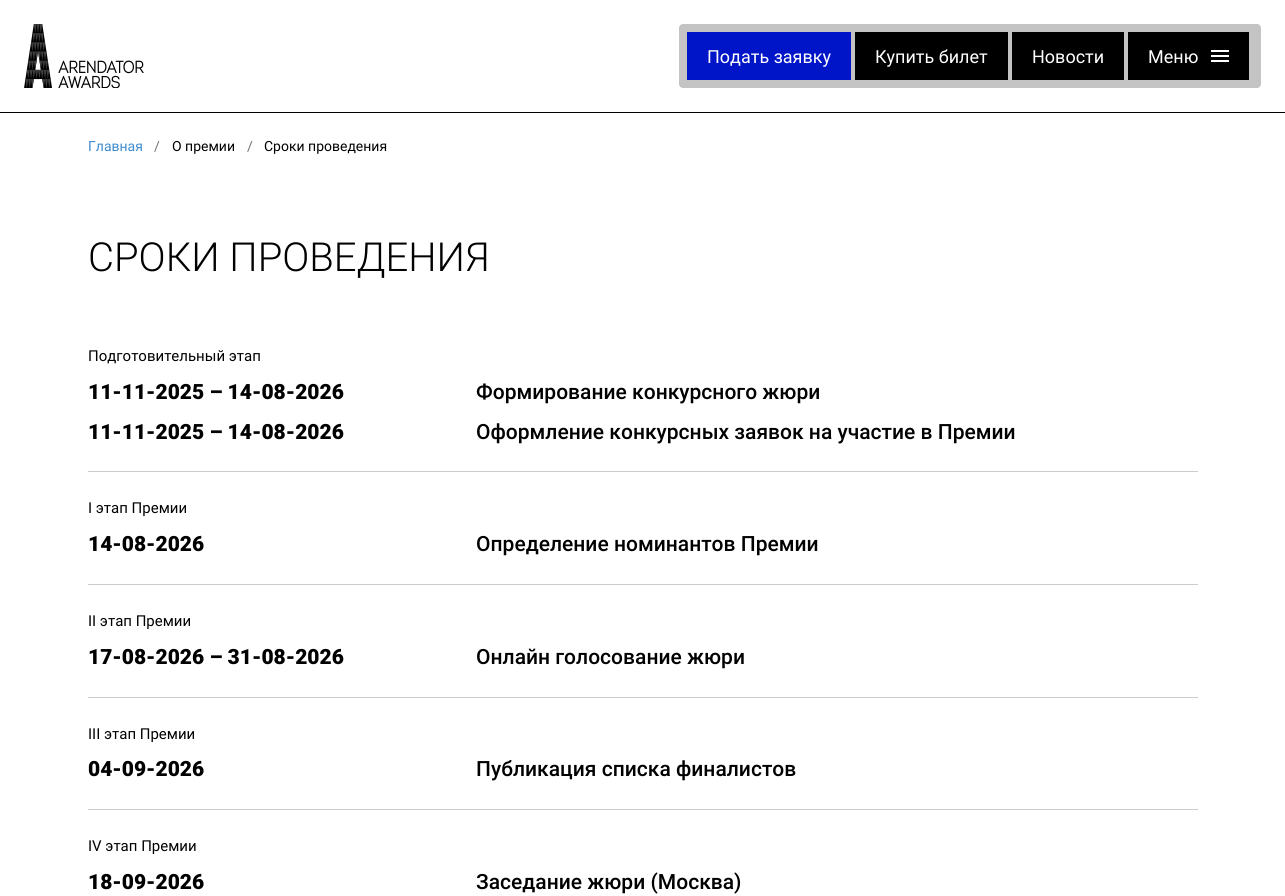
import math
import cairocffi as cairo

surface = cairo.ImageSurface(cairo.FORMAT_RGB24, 1285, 896)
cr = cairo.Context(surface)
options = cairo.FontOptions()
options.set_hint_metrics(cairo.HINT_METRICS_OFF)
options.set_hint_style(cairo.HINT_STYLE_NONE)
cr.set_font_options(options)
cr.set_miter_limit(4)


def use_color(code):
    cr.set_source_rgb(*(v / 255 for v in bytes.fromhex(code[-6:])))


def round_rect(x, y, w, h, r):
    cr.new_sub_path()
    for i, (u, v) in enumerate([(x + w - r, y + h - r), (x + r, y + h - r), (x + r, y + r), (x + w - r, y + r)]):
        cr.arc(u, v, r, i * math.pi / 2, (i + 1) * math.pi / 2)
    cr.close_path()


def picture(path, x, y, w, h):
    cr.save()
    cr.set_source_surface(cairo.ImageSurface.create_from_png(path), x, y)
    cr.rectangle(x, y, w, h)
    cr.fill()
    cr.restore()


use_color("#ffffff")
cr.paint()
use_color("#000000")
cr.rectangle(0, 112, 1285, 1)
cr.fill()
picture("img1.png", 24, 24, 120, 64)
use_color("#c4c4c4")
round_rect(679, 24, 582, 64, 4)
cr.fill()
use_color("#0015c8")
cr.rectangle(687, 32, 164, 48)
cr.fill()
cr.select_font_face("Roboto")
cr.set_font_size(18)
use_color("#ffffff")
cr.move_to(707, 63)
cr.show_text("Подать заявку")
use_color("#000000")
cr.rectangle(855, 32, 153, 48)
cr.fill()
use_color("#ffffff")
cr.move_to(875, 63)
cr.show_text("Купить билет")
use_color("#000000")
cr.rectangle(1012, 32, 112, 48)
cr.fill()
use_color("#ffffff")
cr.move_to(1032, 63)
cr.show_text("Новости")
use_color("#000000")
cr.rectangle(1128, 32, 121, 48)
cr.fill()
use_color("#ffffff")
cr.move_to(1148, 63)
cr.show_text("Меню")
cr.rectangle(1211, 50, 18, 2)
cr.fill()
cr.rectangle(1211, 55, 18, 2)
cr.fill()
cr.rectangle(1211, 60, 18, 2)
cr.fill()
cr.set_font_size(14)
use_color("#3d8bcf")
cr.move_to(88, 151)
cr.show_text("Главная")
use_color("#707070")
cr.move_to(154, 151)
cr.show_text("/")
use_color("#000000")
cr.move_to(172, 151)
cr.show_text("О премии")
use_color("#707070")
cr.move_to(247, 151)
cr.show_text("/")
use_color("#000000")
cr.move_to(264, 151)
cr.show_text("Сроки проведения")
cr.select_font_face("Roboto Light")
cr.set_font_size(40)
cr.move_to(88, 271)
cr.show_text("СРОКИ ПРОВЕДЕНИЯ")
use_color("#cccccc")
cr.rectangle(88, 471, 1110, 1)
cr.fill()
cr.select_font_face("Roboto")
cr.set_font_size(15)
use_color("#000000")
cr.move_to(88, 361)
cr.show_text("Подготовительный этап")
cr.select_font_face("Roboto Black")
cr.set_font_size(21)
cr.move_to(88, 399)
cr.show_text("11-11-2025 – 14-08-2026")
cr.select_font_face("Roboto Medium")
cr.move_to(476, 399)
cr.show_text("Формирование конкурсного жюри")
cr.select_font_face("Roboto Black")
cr.move_to(88, 439)
cr.show_text("11-11-2025 – 14-08-2026")
cr.select_font_face("Roboto Medium")
cr.move_to(476, 439)
cr.show_text("Оформление конкурсных заявок на участие в Премии")
use_color("#cccccc")
cr.rectangle(88, 584, 1110, 1)
cr.fill()
cr.select_font_face("Roboto")
cr.set_font_size(15)
use_color("#000000")
cr.move_to(88, 513)
cr.show_text("I этап Премии")
cr.select_font_face("Roboto Black")
cr.set_font_size(21)
cr.move_to(88, 551)
cr.show_text("14-08-2026")
cr.select_font_face("Roboto Medium")
cr.move_to(476, 551)
cr.show_text("Определение номинантов Премии")
use_color("#cccccc")
cr.rectangle(88, 697, 1110, 1)
cr.fill()
cr.select_font_face("Roboto")
cr.set_font_size(15)
use_color("#000000")
cr.move_to(88, 626)
cr.show_text("II этап Премии")
cr.select_font_face("Roboto Black")
cr.set_font_size(21)
cr.move_to(88, 664)
cr.show_text("17-08-2026 – 31-08-2026")
cr.select_font_face("Roboto Medium")
cr.move_to(476, 664)
cr.show_text("Онлайн голосование жюри")
use_color("#cccccc")
cr.rectangle(88, 809, 1110, 1)
cr.fill()
cr.select_font_face("Roboto")
cr.set_font_size(15)
use_color("#000000")
cr.move_to(88, 739)
cr.show_text("III этап Премии")
cr.select_font_face("Roboto Black")
cr.set_font_size(21)
cr.move_to(88, 776)
cr.show_text("04-09-2026")
cr.select_font_face("Roboto Medium")
cr.move_to(476, 776)
cr.show_text("Публикация списка финалистов")
cr.select_font_face("Roboto")
cr.set_font_size(15)
cr.move_to(88, 851)
cr.show_text("IV этап Премии")
cr.select_font_face("Roboto Black")
cr.set_font_size(21)
cr.move_to(88, 889)
cr.show_text("18-09-2026")
cr.select_font_face("Roboto Medium")
cr.move_to(476, 889)
cr.show_text("Заседание жюри (Москва)")
surface.write_to_png("result.png")
